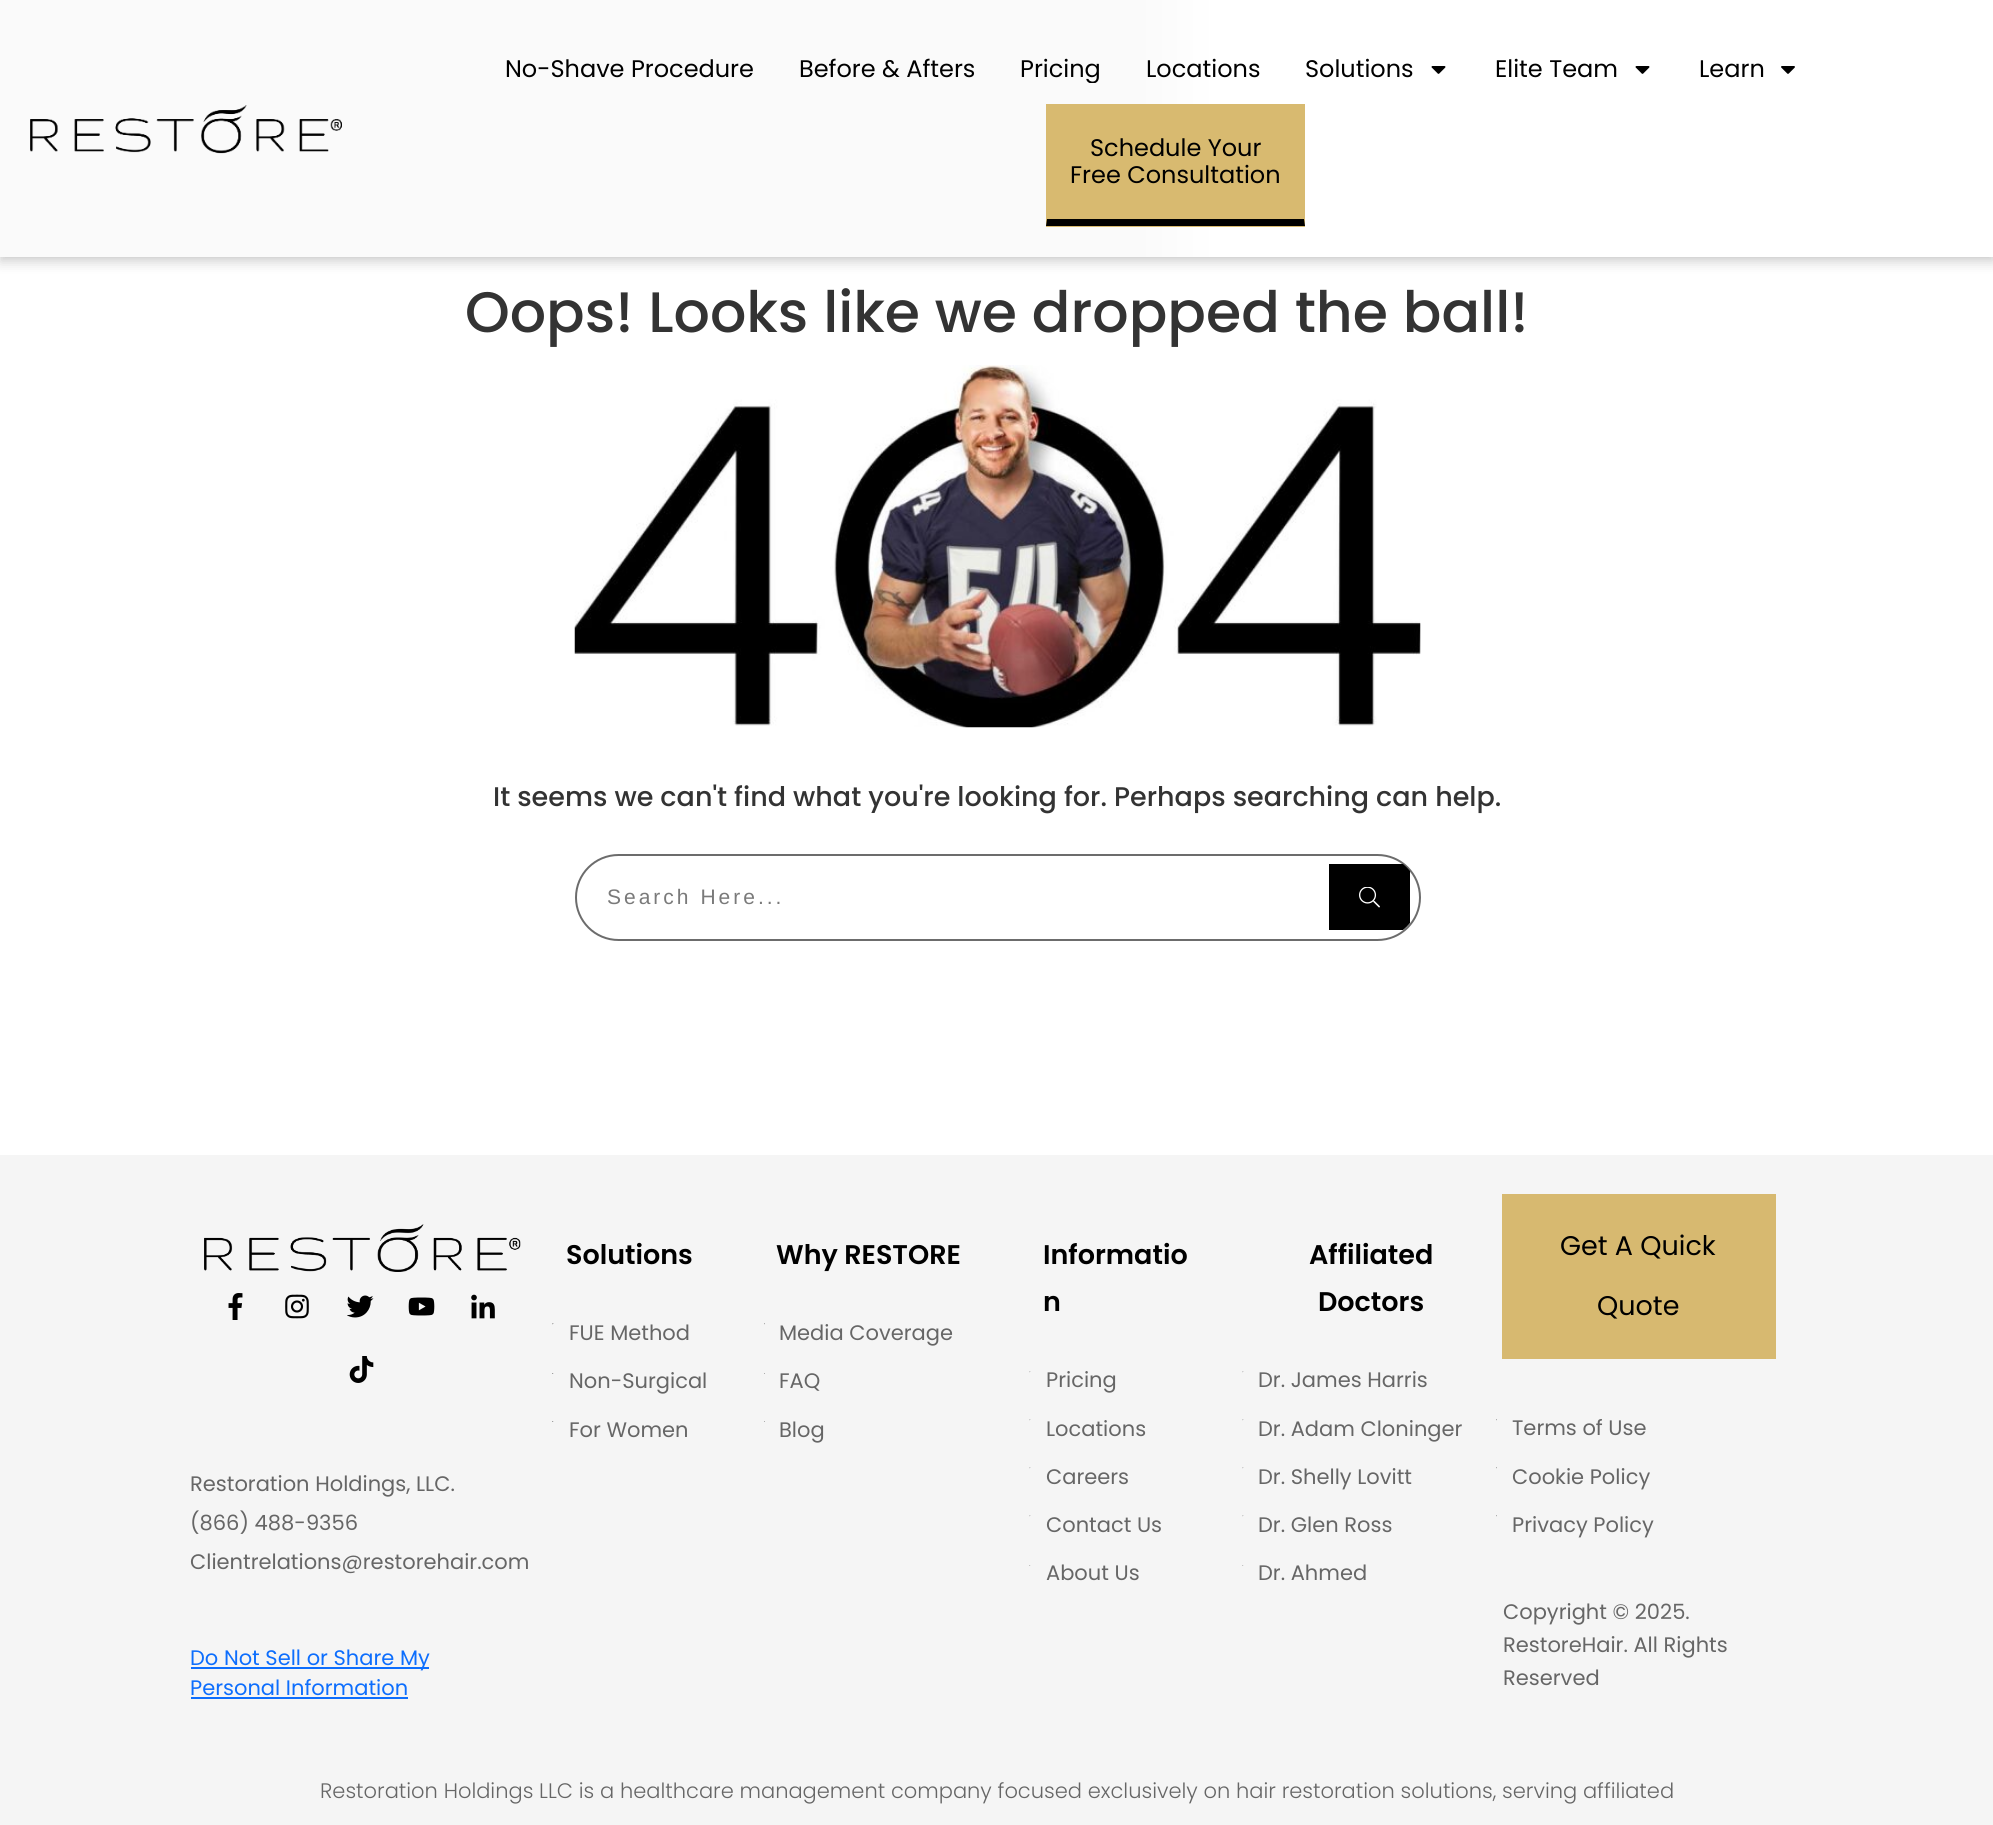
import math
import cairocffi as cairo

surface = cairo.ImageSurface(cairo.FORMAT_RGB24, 1993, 1825)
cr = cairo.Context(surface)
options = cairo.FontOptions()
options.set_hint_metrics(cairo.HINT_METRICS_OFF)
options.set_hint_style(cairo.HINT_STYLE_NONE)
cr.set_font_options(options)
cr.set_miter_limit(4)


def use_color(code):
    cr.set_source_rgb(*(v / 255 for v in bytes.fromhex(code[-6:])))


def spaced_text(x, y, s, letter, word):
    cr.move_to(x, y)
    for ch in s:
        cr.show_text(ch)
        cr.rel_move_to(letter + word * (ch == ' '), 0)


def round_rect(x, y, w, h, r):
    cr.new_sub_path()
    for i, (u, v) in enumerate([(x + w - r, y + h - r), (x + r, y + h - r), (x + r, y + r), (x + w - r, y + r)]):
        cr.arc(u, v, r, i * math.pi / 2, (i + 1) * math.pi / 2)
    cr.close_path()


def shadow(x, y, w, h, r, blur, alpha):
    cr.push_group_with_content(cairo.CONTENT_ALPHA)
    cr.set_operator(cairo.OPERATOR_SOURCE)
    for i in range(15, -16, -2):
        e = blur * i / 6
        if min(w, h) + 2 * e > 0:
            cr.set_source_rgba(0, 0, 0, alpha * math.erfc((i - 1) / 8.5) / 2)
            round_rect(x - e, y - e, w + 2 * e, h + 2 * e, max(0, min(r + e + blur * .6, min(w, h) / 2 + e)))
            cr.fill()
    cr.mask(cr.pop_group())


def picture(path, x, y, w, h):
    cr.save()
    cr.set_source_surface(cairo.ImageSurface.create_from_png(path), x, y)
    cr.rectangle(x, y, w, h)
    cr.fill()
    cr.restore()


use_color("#ffffff")
cr.paint()
use_color("#000000")
shadow(0, 6, 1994, 257, 0, 6, 0.15)
shadow(0, 0, 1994, 257, 0, 3, 0.1)
gradient = cairo.LinearGradient(0, 128, 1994, 128)
gradient.add_color_stop_rgba(0.57, 0.98, 0.98, 0.98, 1)
gradient.add_color_stop_rgba(0.61, 1, 1, 1, 1)
cr.set_source(gradient)
cr.rectangle(0, 0, 1993, 257)
cr.fill()
picture("img1.png", 30, 105, 312, 49)
cr.select_font_face("Poppins")
cr.set_font_size(24)
use_color("#000000")
cr.move_to(505, 77)
cr.show_text("No-Shave Procedure")
cr.move_to(799, 77)
cr.show_text("Before & Afters")
cr.save()
cr.rectangle(1020, 56, 81, 27)
cr.clip()
cr.move_to(1020, 77)
cr.show_text("Pricing")
cr.restore()
cr.move_to(1146, 77)
cr.show_text("Locations")
cr.move_to(1305, 77)
cr.show_text("Solutions")
picture("img2.png", 1431, 66, 15, 8)
cr.move_to(1495, 77)
cr.show_text("Elite Team")
picture("img2.png", 1635, 66, 15, 8)
cr.move_to(1699, 77)
cr.show_text("Learn")
picture("img3.png", 1781, 66, 14, 8)
use_color("#d8ba70")
cr.rectangle(1046, 104, 259, 123)
cr.fill()
use_color("#000000")
cr.new_path()
cr.move_to(1305, 226)
cr.line_to(1046, 226)
cr.line_to(1047, 219)
cr.line_to(1304, 219)
cr.close_path()
cr.fill()
cr.move_to(1090, 156)
cr.show_text("Schedule Your")
cr.move_to(1070, 183)
cr.show_text("Free Consultation")
cr.select_font_face("Poppins Medium")
cr.set_font_size(57)
use_color("#333333")
cr.move_to(465, 332)
cr.show_text("Oops! Looks like we dropped the ball!")
picture("img4.png", 574, 365, 847, 363)
cr.set_font_size(27)
cr.move_to(493, 806)
cr.show_text("It seems we can't find what you're looking for. Perhaps searching can help.")
round_rect(576, 855, 844, 85, 42.5)
use_color("#6c6c6c")
cr.stroke()
cr.select_font_face("Liberation Sans")
cr.set_font_size(21)
use_color("#7a7a7a")
spaced_text(607, 904, "Search Here...", 3, 0)
cr.save()
round_rect(576, 855, 843, 84, 42)
cr.clip()
use_color("#000000")
cr.rectangle(1329, 864, 81, 66)
cr.fill()
cr.restore()
picture("img5.png", 1359, 887, 21, 21)
use_color("#f5f5f5")
cr.rectangle(0, 1155, 1993, 670)
cr.fill()
picture("img6.png", 204, 1224, 317, 48)
picture("img7.png", 228, 1293, 15, 27)
picture("img8.png", 285, 1294, 24, 25)
picture("img9.png", 347, 1295, 27, 23)
picture("img10.png", 408, 1297, 27, 19)
picture("img11.png", 471, 1294, 24, 25)
picture("img12.png", 349, 1356, 25, 27)
cr.select_font_face("Poppins")
use_color("#666666")
cr.move_to(190, 1491)
cr.show_text("Restoration Holdings, LLC.")
cr.move_to(190, 1530)
cr.show_text("(866) 488-9356")
cr.move_to(190, 1569)
cr.show_text("Clientrelations@restorehair.com")
use_color("#0d6efd")
cr.rectangle(191, 1667, 238, 2)
cr.fill()
cr.move_to(190, 1665)
cr.show_text("Do Not Sell or Share My")
cr.move_to(190, 1695)
cr.show_text("Personal Information")
cr.rectangle(191, 1697, 217, 2)
cr.fill()
cr.select_font_face("Poppins SemiBold")
cr.set_font_size(27)
use_color("#000000")
cr.move_to(566, 1264)
cr.show_text("Solutions")
picture("img13.png", 552, 1323, 2, 2)
cr.select_font_face("Poppins")
cr.set_font_size(21)
use_color("#666666")
cr.move_to(569, 1340)
cr.show_text("FUE Method")
picture("img14.png", 552, 1373, 2, 1)
cr.move_to(569, 1388)
cr.show_text("Non-Surgical")
picture("img14.png", 552, 1421, 2, 1)
cr.move_to(569, 1437)
cr.show_text("For Women")
cr.select_font_face("Poppins SemiBold")
cr.set_font_size(27)
use_color("#000000")
cr.move_to(776, 1264)
cr.show_text("Why RESTORE")
picture("img15.png", 764, 1323, 1, 2)
cr.select_font_face("Poppins")
cr.set_font_size(21)
use_color("#666666")
cr.move_to(779, 1340)
cr.show_text("Media Coverage")
use_color("#aeaeae")
cr.rectangle(764, 1373, 1, 1)
cr.fill()
use_color("#666666")
cr.move_to(779, 1388)
cr.show_text("FAQ")
use_color("#aeaeae")
cr.rectangle(764, 1421, 1, 1)
cr.fill()
use_color("#666666")
cr.move_to(779, 1437)
cr.show_text("Blog")
cr.select_font_face("Poppins SemiBold")
cr.set_font_size(27)
use_color("#000000")
cr.move_to(1043, 1264)
cr.show_text("Informatio")
cr.move_to(1043, 1311)
cr.show_text("n")
picture("img16.png", 1029, 1371, 2, 2)
cr.select_font_face("Poppins")
cr.set_font_size(21)
use_color("#666666")
cr.move_to(1046, 1387)
cr.show_text("Pricing")
picture("img16.png", 1029, 1419, 2, 2)
cr.move_to(1046, 1436)
cr.show_text("Locations")
picture("img16.png", 1029, 1467, 2, 2)
cr.move_to(1046, 1484)
cr.show_text("Careers")
picture("img16.png", 1029, 1515, 2, 2)
cr.move_to(1046, 1532)
cr.show_text("Contact Us")
picture("img17.png", 1029, 1565, 2, 1)
cr.move_to(1046, 1580)
cr.show_text("About Us")
cr.select_font_face("Poppins SemiBold")
cr.set_font_size(27)
use_color("#000000")
cr.move_to(1309, 1264)
cr.show_text("Affiliated")
cr.move_to(1318, 1311)
cr.show_text("Doctors")
picture("img16.png", 1242, 1371, 2, 2)
cr.select_font_face("Poppins")
cr.set_font_size(21)
use_color("#666666")
cr.move_to(1258, 1387)
cr.show_text("Dr. James Harris")
picture("img16.png", 1242, 1419, 2, 2)
cr.move_to(1258, 1436)
cr.show_text("Dr. Adam Cloninger")
picture("img16.png", 1242, 1467, 2, 2)
cr.move_to(1258, 1484)
cr.show_text("Dr. Shelly Lovitt")
picture("img16.png", 1242, 1515, 2, 2)
cr.move_to(1258, 1532)
cr.show_text("Dr. Glen Ross")
picture("img17.png", 1242, 1565, 2, 1)
cr.move_to(1258, 1580)
cr.show_text("Dr. Ahmed")
use_color("#d7b970")
cr.rectangle(1502, 1194, 274, 165)
cr.fill()
cr.set_font_size(27)
use_color("#000000")
cr.move_to(1560, 1255)
cr.show_text("Get A Quick")
cr.move_to(1597, 1315)
cr.show_text("Quote")
picture("img15.png", 1496, 1419, 1, 2)
cr.set_font_size(21)
use_color("#666666")
cr.move_to(1512, 1435)
cr.show_text("Terms of Use")
picture("img15.png", 1496, 1467, 1, 2)
cr.move_to(1512, 1484)
cr.show_text("Cookie Policy")
picture("img15.png", 1496, 1515, 1, 2)
cr.move_to(1512, 1532)
cr.show_text("Privacy Policy")
cr.move_to(1503, 1619)
cr.show_text("Copyright © 2025.")
cr.move_to(1503, 1652)
cr.show_text("RestoreHair. All Rights")
cr.move_to(1503, 1685)
cr.show_text("Reserved")
cr.select_font_face("Poppins Light")
cr.move_to(320, 1798)
cr.show_text("Restoration Holdings LLC is a healthcare management company focused exclusively on hair restoration solutions, serving affiliated")
surface.write_to_png("result.png")
